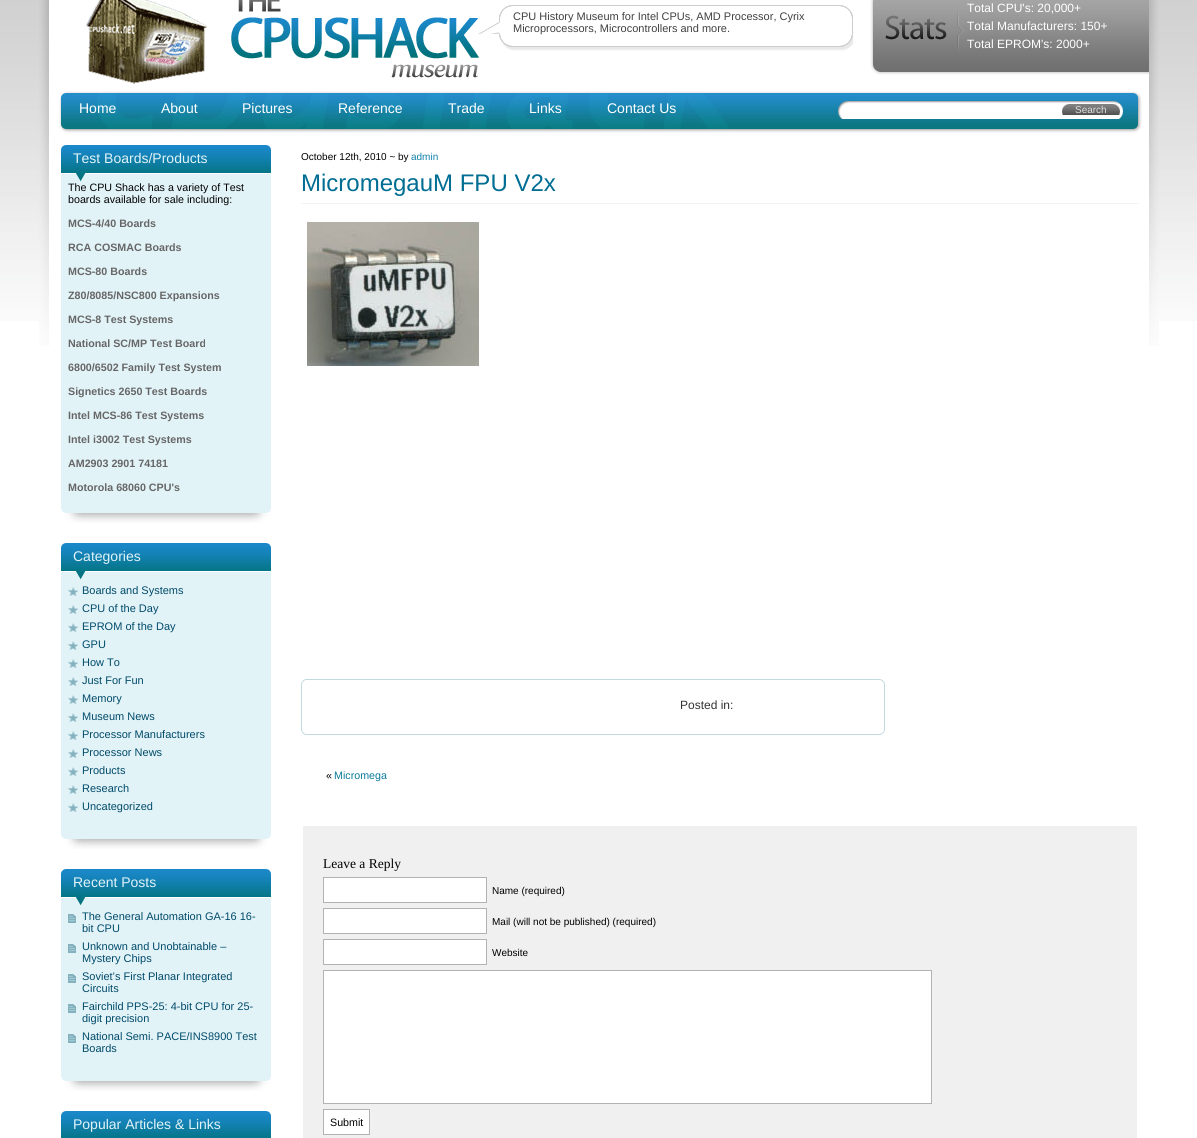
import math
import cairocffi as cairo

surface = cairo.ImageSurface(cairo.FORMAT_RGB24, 1197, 1138)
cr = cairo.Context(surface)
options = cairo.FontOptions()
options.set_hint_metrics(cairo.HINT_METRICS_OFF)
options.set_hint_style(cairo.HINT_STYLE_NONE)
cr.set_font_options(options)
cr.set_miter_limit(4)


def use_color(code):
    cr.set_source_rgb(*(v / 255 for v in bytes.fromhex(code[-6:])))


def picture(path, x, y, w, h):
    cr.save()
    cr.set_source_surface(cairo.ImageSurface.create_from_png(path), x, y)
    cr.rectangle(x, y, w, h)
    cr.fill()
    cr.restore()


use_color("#ffffff")
cr.paint()
picture("img1.png", 0, 0, 1197, 321)
picture("img2.png", 39, 0, 1120, 346)
picture("img3.png", 86, 0, 121, 84)
picture("img4.png", 231, 0, 248, 78)
picture("img5.png", 499, 34, 354, 17)
picture("img6.png", 478, 5, 375, 29)
cr.select_font_face("Liberation Sans")
cr.set_font_size(11)
use_color("#404040")
cr.move_to(513, 20)
cr.show_text("CPU History Museum for Intel CPUs, AMD Processor, Cyrix")
cr.move_to(513, 32)
cr.show_text("Microprocessors, Microcontrollers and more.")
picture("img7.png", 870, 0, 279, 75)
cr.set_font_size(12)
use_color("#ffffff")
cr.move_to(967, 12)
cr.show_text("Total CPU's: 20,000+")
cr.move_to(967, 30)
cr.show_text("Total Manufacturers: 150+")
cr.move_to(967, 48)
cr.show_text("Total EPROM's: 2000+")
picture("img8.png", 59, 91, 1083, 42)
cr.set_font_size(14)
cr.move_to(79, 113)
cr.show_text("Home")
cr.move_to(161, 113)
cr.show_text("About")
cr.move_to(242, 113)
cr.show_text("Pictures")
cr.move_to(338, 113)
cr.show_text("Reference")
cr.move_to(448, 113)
cr.show_text("Trade")
cr.move_to(529, 113)
cr.show_text("Links")
cr.move_to(607, 113)
cr.show_text("Contact Us")
picture("img9.png", 838, 101, 285, 18)
picture("img10.png", 1062, 104, 58, 11)
cr.set_font_size(10)
use_color("#dddddd")
cr.move_to(1075, 113)
cr.show_text("Search")
picture("img11.png", 61, 182, 210, 341)
picture("img12.png", 61, 145, 210, 37)
cr.set_font_size(14)
use_color("#e2f3f8")
cr.move_to(73, 163)
cr.show_text("Test Boards/Products")
cr.set_font_size(10.7)
use_color("#000000")
cr.move_to(68, 191)
cr.show_text("The CPU Shack has a variety of Test")
cr.move_to(68, 203)
cr.show_text("boards available for sale including:")
cr.select_font_face("Liberation Sans", cairo.FONT_SLANT_NORMAL, cairo.FONT_WEIGHT_BOLD)
use_color("#666666")
cr.move_to(68, 227)
cr.show_text("MCS-4/40 Boards")
cr.move_to(68, 251)
cr.show_text("RCA COSMAC Boards")
cr.move_to(68, 275)
cr.show_text("MCS-80 Boards")
cr.move_to(68, 299)
cr.show_text("Z80/8085/NSC800 Expansions")
cr.move_to(68, 323)
cr.show_text("MCS-8 Test Systems")
cr.move_to(68, 347)
cr.show_text("National SC/MP Test Board")
cr.move_to(68, 371)
cr.show_text("6800/6502 Family Test System")
cr.move_to(68, 395)
cr.show_text("Signetics 2650 Test Boards")
cr.move_to(68, 419)
cr.show_text("Intel MCS-86 Test Systems")
cr.move_to(68, 443)
cr.show_text("Intel i3002 Test Systems")
cr.move_to(68, 467)
cr.show_text("AM2903 2901 74181")
cr.move_to(68, 491)
cr.show_text("Motorola 68060 CPU's")
picture("img13.png", 61, 580, 210, 269)
picture("img12.png", 61, 543, 210, 37)
cr.select_font_face("Liberation Sans")
cr.set_font_size(14)
use_color("#e2f3f8")
cr.move_to(73, 561)
cr.show_text("Categories")
picture("img14.png", 68, 587, 11, 9)
cr.set_font_size(11)
use_color("#004a69")
cr.move_to(82, 594)
cr.show_text("Boards and Systems")
picture("img14.png", 68, 605, 11, 9)
cr.move_to(82, 612)
cr.show_text("CPU of the Day")
picture("img14.png", 68, 623, 11, 9)
cr.move_to(82, 630)
cr.show_text("EPROM of the Day")
picture("img14.png", 68, 641, 11, 9)
cr.move_to(82, 648)
cr.show_text("GPU")
picture("img14.png", 68, 659, 11, 9)
cr.move_to(82, 666)
cr.show_text("How To")
picture("img14.png", 68, 677, 11, 9)
cr.move_to(82, 684)
cr.show_text("Just For Fun")
picture("img14.png", 68, 695, 11, 9)
cr.move_to(82, 702)
cr.show_text("Memory")
picture("img14.png", 68, 713, 11, 9)
cr.move_to(82, 720)
cr.show_text("Museum News")
picture("img14.png", 68, 731, 11, 9)
cr.move_to(82, 738)
cr.show_text("Processor Manufacturers")
picture("img14.png", 68, 749, 11, 9)
cr.move_to(82, 756)
cr.show_text("Processor News")
picture("img14.png", 68, 767, 11, 9)
cr.move_to(82, 774)
cr.show_text("Products")
picture("img14.png", 68, 785, 11, 9)
cr.move_to(82, 792)
cr.show_text("Research")
picture("img14.png", 68, 803, 11, 9)
cr.move_to(82, 810)
cr.show_text("Uncategorized")
picture("img15.png", 61, 906, 210, 185)
picture("img12.png", 61, 869, 210, 37)
cr.set_font_size(14)
use_color("#e2f3f8")
cr.move_to(73, 887)
cr.show_text("Recent Posts")
picture("img16.png", 68, 914, 8, 9)
cr.set_font_size(11)
use_color("#004a69")
cr.move_to(82, 920)
cr.show_text("The General Automation GA-16 16-")
cr.move_to(82, 932)
cr.show_text("bit CPU")
picture("img16.png", 68, 944, 8, 9)
cr.move_to(82, 950)
cr.show_text("Unknown and Unobtainable –")
cr.move_to(82, 962)
cr.show_text("Mystery Chips")
picture("img16.png", 68, 974, 8, 9)
cr.move_to(82, 980)
cr.show_text("Soviet’s First Planar Integrated")
cr.move_to(82, 992)
cr.show_text("Circuits")
picture("img16.png", 68, 1004, 8, 9)
cr.move_to(82, 1010)
cr.show_text("Fairchild PPS-25: 4-bit CPU for 25-")
cr.move_to(82, 1022)
cr.show_text("digit precision")
picture("img16.png", 68, 1034, 8, 9)
cr.move_to(82, 1040)
cr.show_text("National Semi. PACE/INS8900 Test")
cr.move_to(82, 1052)
cr.show_text("Boards")
picture("img17.png", 61, 1111, 210, 27)
cr.set_font_size(14)
use_color("#e2f3f8")
cr.move_to(73, 1129)
cr.show_text("Popular Articles & Links")
cr.set_font_size(10)
use_color("#000000")
cr.move_to(301, 160)
cr.show_text("October 12th, 2010 ~ by")
use_color("#1180ac")
cr.move_to(411, 160)
cr.show_text("admin")
use_color("#f3f3f3")
cr.rectangle(301, 203, 838, 1)
cr.fill()
cr.set_font_size(24)
use_color("#006d93")
cr.move_to(301, 191)
cr.show_text("MicromegauM FPU V2x")
picture("img18.png", 307, 222, 172, 144)
picture("img19.png", 305, 679, 580, 52)
picture("img20.png", 301, 679, 4, 52)
cr.set_font_size(12)
use_color("#333333")
cr.move_to(680, 709)
cr.show_text("Posted in:")
picture("img21.png", 305, 731, 580, 4)
picture("img22.png", 301, 731, 4, 4)
cr.set_font_size(10.7)
use_color("#000000")
cr.move_to(326, 779)
cr.show_text("«")
use_color("#0c7b9b")
cr.move_to(334, 779)
cr.show_text("Micromega")
use_color("#f0f0f0")
cr.rectangle(303, 826, 834, 312)
cr.fill()
cr.select_font_face("Liberation Serif")
cr.set_font_size(13.5)
use_color("#000000")
cr.move_to(323, 868)
cr.show_text("Leave a Reply")
use_color("#ffffff")
cr.rectangle(323.5, 877.5, 163, 25)
cr.fill_preserve()
use_color("#b2b2b2")
cr.set_line_width(1)
cr.stroke()
cr.select_font_face("Liberation Sans")
cr.set_font_size(10)
use_color("#000000")
cr.move_to(492, 894)
cr.show_text("Name (required)")
use_color("#ffffff")
cr.rectangle(323.5, 908.5, 163, 25)
cr.fill_preserve()
use_color("#b2b2b2")
cr.stroke()
use_color("#000000")
cr.move_to(492, 925)
cr.show_text("Mail (will not be published) (required)")
use_color("#ffffff")
cr.rectangle(323.5, 939.5, 163, 25)
cr.fill_preserve()
use_color("#b2b2b2")
cr.stroke()
use_color("#000000")
cr.move_to(492, 956)
cr.show_text("Website")
use_color("#ffffff")
cr.rectangle(323.5, 970.5, 608, 133)
cr.fill_preserve()
use_color("#b2b2b2")
cr.stroke()
use_color("#ffffff")
cr.rectangle(323.5, 1109.5, 46, 25)
cr.fill_preserve()
use_color("#b2b2b2")
cr.stroke()
cr.set_font_size(10.7)
use_color("#000000")
cr.move_to(330, 1126)
cr.show_text("Submit")
surface.write_to_png("result.png")
